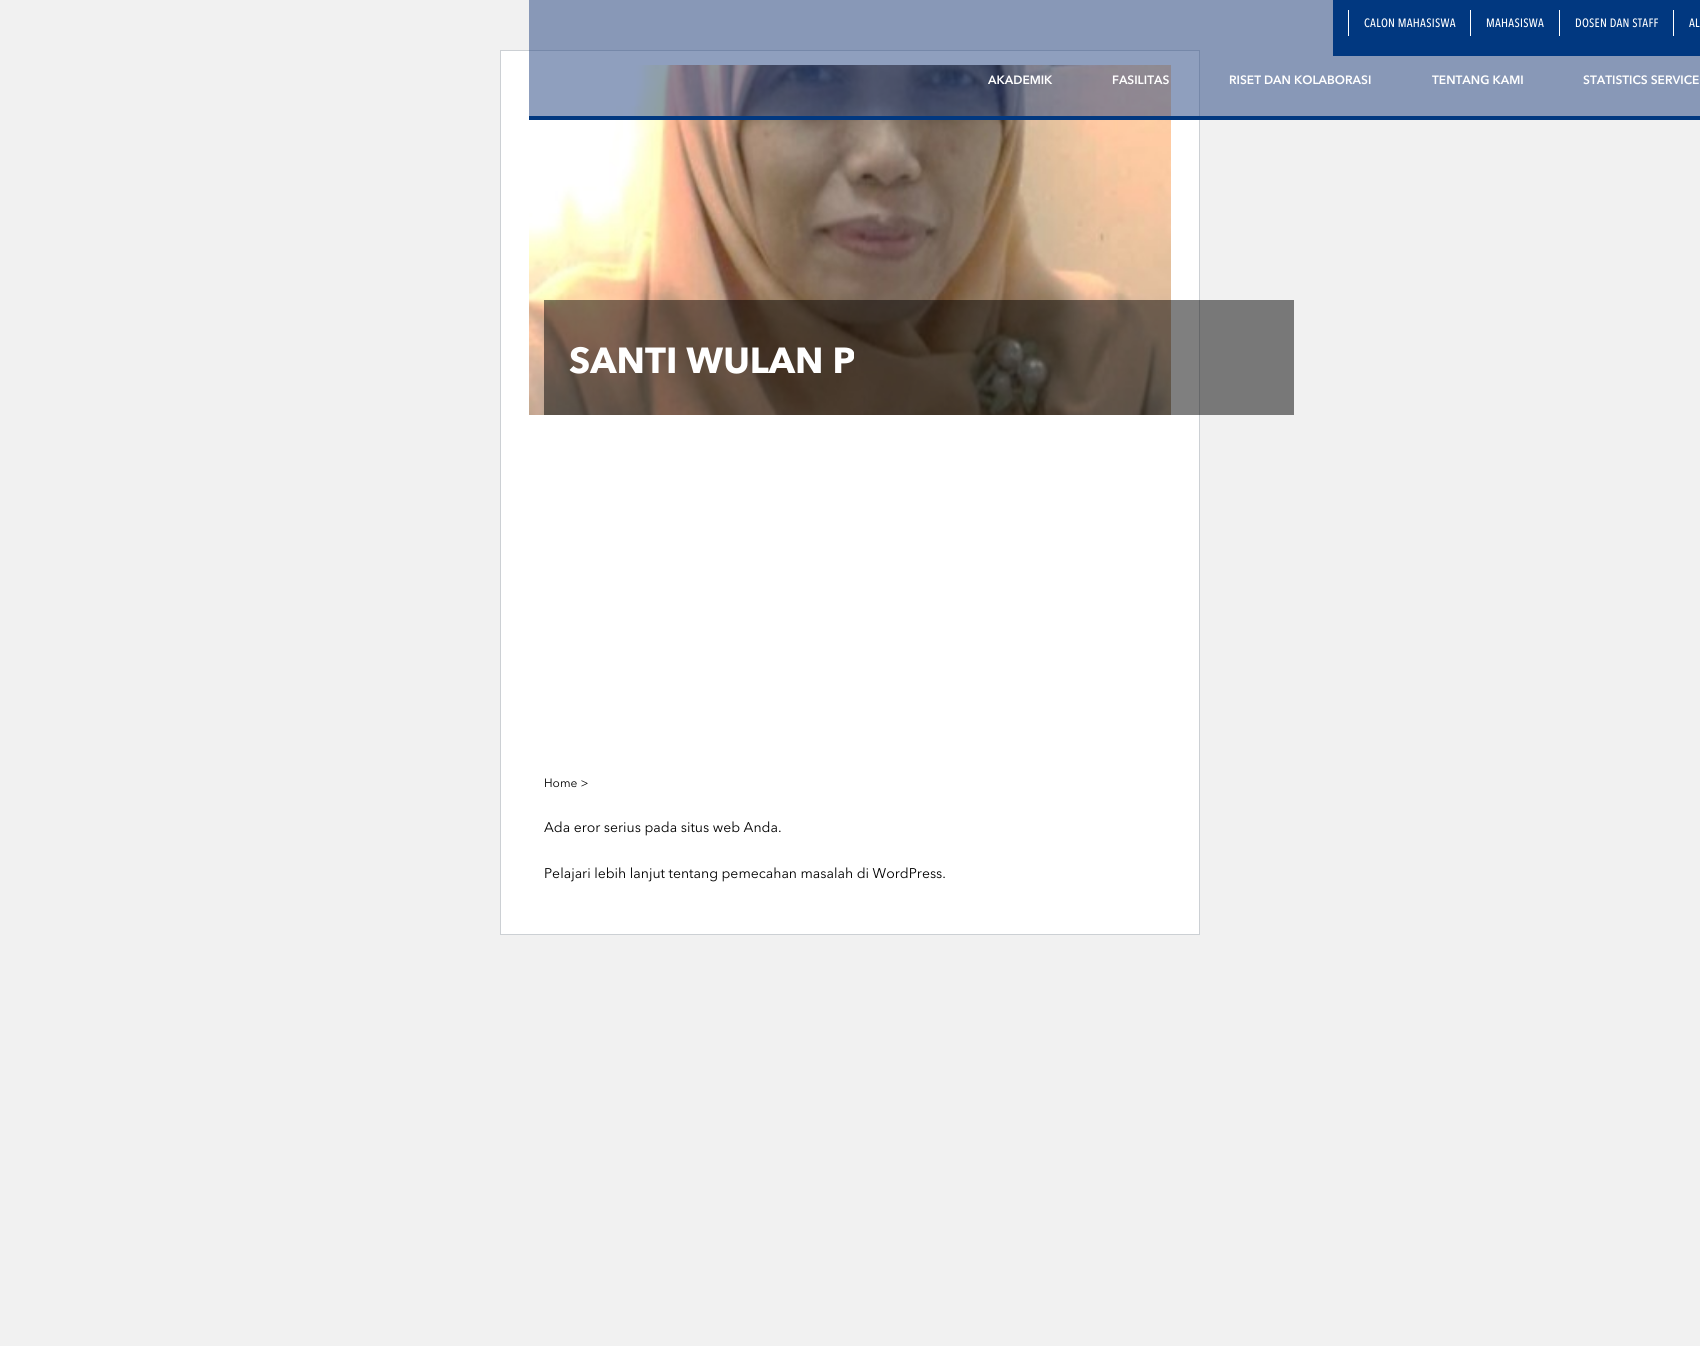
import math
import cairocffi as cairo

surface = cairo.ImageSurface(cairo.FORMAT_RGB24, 1700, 1346)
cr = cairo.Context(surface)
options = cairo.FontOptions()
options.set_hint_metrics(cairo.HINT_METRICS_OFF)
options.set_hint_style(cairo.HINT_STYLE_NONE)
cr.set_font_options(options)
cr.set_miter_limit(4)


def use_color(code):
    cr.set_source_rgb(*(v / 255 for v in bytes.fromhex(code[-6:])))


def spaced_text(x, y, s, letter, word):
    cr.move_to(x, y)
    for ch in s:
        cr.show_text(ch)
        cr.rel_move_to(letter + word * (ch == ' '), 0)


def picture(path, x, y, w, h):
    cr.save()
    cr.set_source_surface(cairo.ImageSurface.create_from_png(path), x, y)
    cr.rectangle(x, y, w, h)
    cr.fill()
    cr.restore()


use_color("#f1f1f1")
cr.paint()
use_color("#ffffff")
cr.rectangle(500.5, 50.5, 699, 884)
cr.fill_preserve()
use_color("#ccd0d4")
cr.set_line_width(1)
cr.stroke()
picture("img1.png", 529, 65, 642, 350)
cr.set_source_rgba(0.125, 0.255, 0.498, 0.5)
cr.rectangle(529, 0, 1171, 116)
cr.fill()
use_color("#013880")
cr.rectangle(529, 116, 1171, 4)
cr.fill()
cr.rectangle(1333, 0, 367, 56)
cr.fill()
use_color("#ffffff")
cr.rectangle(1470, 10, 1, 26)
cr.fill()
cr.rectangle(1348, 10, 1, 26)
cr.fill()
cr.select_font_face("Avenir Next Medium")
cr.set_font_size(12)
spaced_text(1364, 27, "CALON MAHASISWA", 0.25, 0)
cr.rectangle(1559, 10, 1, 26)
cr.fill()
spaced_text(1486, 27, "MAHASISWA", 0.25, 0)
cr.rectangle(1673, 10, 1, 26)
cr.fill()
spaced_text(1575, 27, "DOSEN DAN STAFF", 0.25, 0)
spaced_text(1689, 27, "AL", 0.25, 0)
cr.select_font_face("Avenir Next SemiBold")
cr.move_to(988, 84)
cr.show_text("AKADEMIK")
cr.move_to(1112, 84)
cr.show_text("FASILITAS")
cr.move_to(1229, 84)
cr.show_text("RISET DAN KOLABORASI")
cr.move_to(1432, 84)
cr.show_text("TENTANG KAMI")
cr.move_to(1583, 84)
cr.show_text("STATISTICS SERVICE")
cr.set_source_rgba(0, 0, 0, 0.5)
cr.rectangle(544, 300, 750, 115)
cr.fill()
cr.select_font_face("Avenir Next", cairo.FONT_SLANT_NORMAL, cairo.FONT_WEIGHT_BOLD)
cr.set_font_size(36)
use_color("#ffffff")
cr.move_to(569, 373)
cr.show_text("SANTI WULAN P")
cr.select_font_face("Avenir Next")
cr.set_font_size(12)
use_color("#000000")
cr.move_to(544, 787)
cr.show_text("Home >")
cr.set_font_size(14)
cr.move_to(544, 832)
cr.show_text("Ada eror serius pada situs web Anda.")
cr.move_to(544, 878)
cr.show_text("Pelajari lebih lanjut tentang pemecahan masalah di WordPress.")
surface.write_to_png("result.png")
